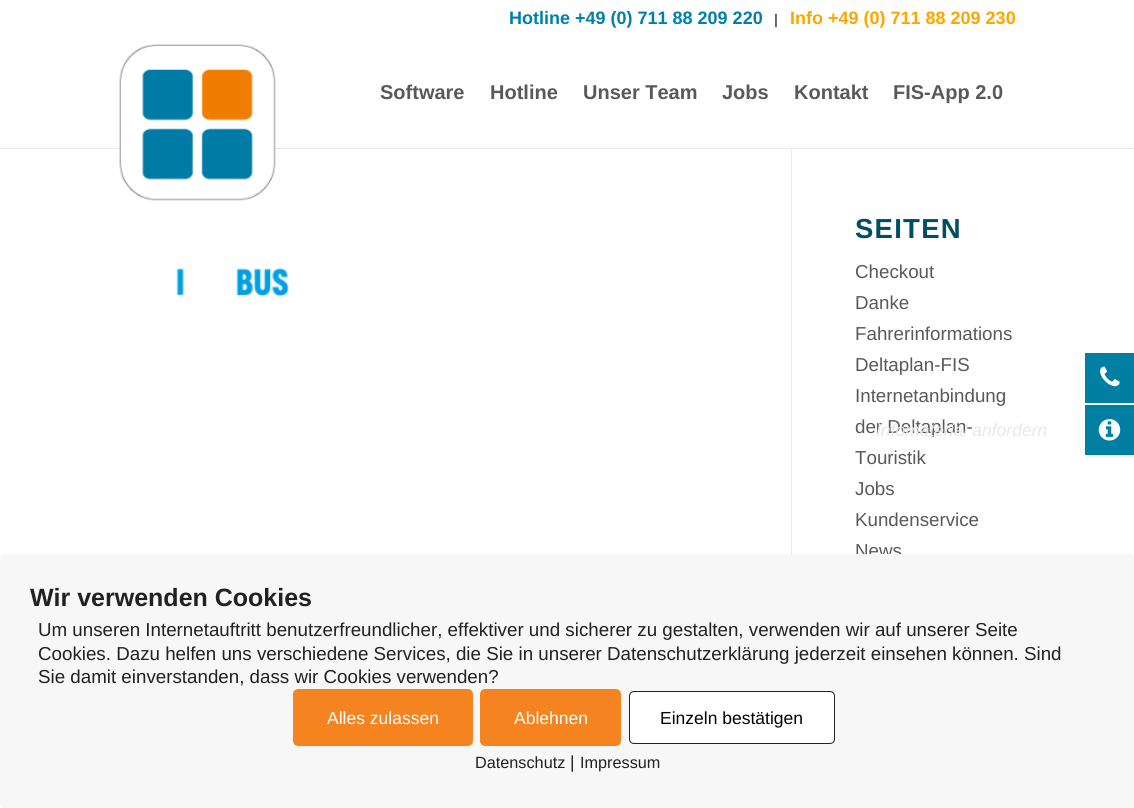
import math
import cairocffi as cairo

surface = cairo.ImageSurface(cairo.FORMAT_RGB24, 1134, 808)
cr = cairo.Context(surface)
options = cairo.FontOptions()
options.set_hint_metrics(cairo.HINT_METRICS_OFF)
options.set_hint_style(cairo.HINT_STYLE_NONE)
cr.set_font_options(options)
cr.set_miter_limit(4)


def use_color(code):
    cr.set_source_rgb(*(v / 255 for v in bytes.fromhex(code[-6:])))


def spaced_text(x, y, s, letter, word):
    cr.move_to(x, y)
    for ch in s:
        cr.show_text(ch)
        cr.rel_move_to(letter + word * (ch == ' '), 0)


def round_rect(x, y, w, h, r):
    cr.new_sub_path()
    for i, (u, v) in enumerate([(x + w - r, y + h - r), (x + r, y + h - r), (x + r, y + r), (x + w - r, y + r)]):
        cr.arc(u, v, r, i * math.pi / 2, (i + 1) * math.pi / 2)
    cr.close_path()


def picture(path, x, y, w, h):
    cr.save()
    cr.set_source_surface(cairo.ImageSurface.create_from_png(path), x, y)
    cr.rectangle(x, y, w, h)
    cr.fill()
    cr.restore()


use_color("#ffffff")
cr.paint()
cr.select_font_face("Liberation Sans", cairo.FONT_SLANT_NORMAL, cairo.FONT_WEIGHT_BOLD)
cr.set_font_size(18)
use_color("#007fae")
cr.move_to(509, 24)
cr.show_text("Hotline +49 (0) 711 88 209 220")
cr.set_font_size(14)
use_color("#595959")
cr.move_to(774, 24)
cr.show_text("|")
cr.set_font_size(18)
use_color("#ffa500")
cr.move_to(790, 24)
cr.show_text("Info +49 (0) 711 88 209 230")
use_color("#ebebeb")
cr.rectangle(0, 148, 1134, 1)
cr.fill()
picture("img1.png", 119, 44, 157, 157)
cr.set_font_size(20)
use_color("#595959")
cr.move_to(380, 99)
cr.show_text("Software")
cr.move_to(490, 99)
cr.show_text("Hotline")
cr.move_to(583, 99)
cr.show_text("Unser Team")
cr.move_to(722, 99)
cr.show_text("Jobs")
cr.move_to(794, 99)
cr.show_text("Kontakt")
cr.move_to(893, 99)
cr.show_text("FIS-App 2.0")
picture("img2.png", 176, 267, 113, 30)
use_color("#ebebeb")
cr.rectangle(791, 149, 1, 405)
cr.fill()
cr.set_font_size(27.5)
use_color("#004e64")
spaced_text(855, 238, "SEITEN", 1.25, 0)
cr.select_font_face("Liberation Sans")
cr.set_font_size(18.75)
use_color("#595959")
cr.move_to(855, 278)
cr.show_text("Checkout")
cr.move_to(855, 309)
cr.show_text("Danke")
cr.move_to(855, 340)
cr.show_text("Fahrerinformations")
cr.move_to(855, 371)
cr.show_text("Deltaplan-FIS")
cr.move_to(855, 402)
cr.show_text("Internetanbindung")
cr.move_to(855, 433)
cr.show_text("der Deltaplan-")
cr.move_to(855, 464)
cr.show_text("Touristik")
cr.move_to(855, 495)
cr.show_text("Jobs")
cr.move_to(855, 526)
cr.show_text("Kundenservice")
cr.move_to(855, 557)
cr.show_text("News")
use_color("#007fa3")
cr.rectangle(1085, 353, 49, 50)
cr.fill()
picture("img3.png", 1100, 366, 20, 21)
cr.select_font_face("Liberation Sans", cairo.FONT_SLANT_ITALIC)
cr.set_font_size(17.5)
use_color("#e8e8e8")
cr.move_to(876, 436)
cr.show_text("Infomaterial anfordern")
use_color("#007fa3")
cr.rectangle(1085, 405, 49, 50)
cr.fill()
picture("img4.png", 1098, 419, 23, 22)
use_color("#ffffff")
cr.rectangle(856, 554, 46, 4)
cr.fill()
use_color("#f7f7f7")
round_rect(0, 554, 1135, 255, 5)
cr.fill()
cr.select_font_face("Liberation Sans", cairo.FONT_SLANT_NORMAL, cairo.FONT_WEIGHT_BOLD)
cr.set_font_size(25)
use_color("#212121")
cr.move_to(30, 606)
cr.show_text("Wir verwenden Cookies")
cr.select_font_face("Liberation Sans")
cr.set_font_size(18.75)
cr.move_to(38, 636)
cr.show_text("Um unseren Internetauftritt benutzerfreundlicher, effektiver und sicherer zu gestalten, verwenden wir auf unserer Seite")
cr.move_to(38, 660)
cr.show_text("Cookies. Dazu helfen uns verschiedene Services, die Sie in unserer Datenschutzerklärung jederzeit einsehen können. Sind")
cr.move_to(38, 683)
cr.show_text("Sie damit einverstanden, dass wir Cookies verwenden?")
use_color("#f58320")
round_rect(295, 691, 176, 53, 3)
cr.fill_preserve()
cr.set_line_width(4)
cr.stroke()
cr.set_font_size(17.5)
use_color("#ffffff")
cr.move_to(327, 724)
cr.show_text("Alles zulassen")
use_color("#f58320")
round_rect(482, 691, 137, 53, 3)
cr.fill_preserve()
cr.stroke()
use_color("#ffffff")
cr.move_to(514, 724)
cr.show_text("Ablehnen")
round_rect(629.5, 691.5, 205, 52, 4.5)
cr.fill_preserve()
use_color("#212121")
cr.set_line_width(1)
cr.stroke()
use_color("#000000")
cr.move_to(660, 724)
cr.show_text("Einzeln bestätigen")
cr.set_font_size(16.25)
use_color("#212121")
cr.move_to(475, 768)
cr.show_text("Datenschutz")
cr.set_font_size(17.5)
cr.move_to(570, 768)
cr.show_text("|")
cr.set_font_size(16.25)
cr.move_to(580, 768)
cr.show_text("Impressum")
surface.write_to_png("result.png")
